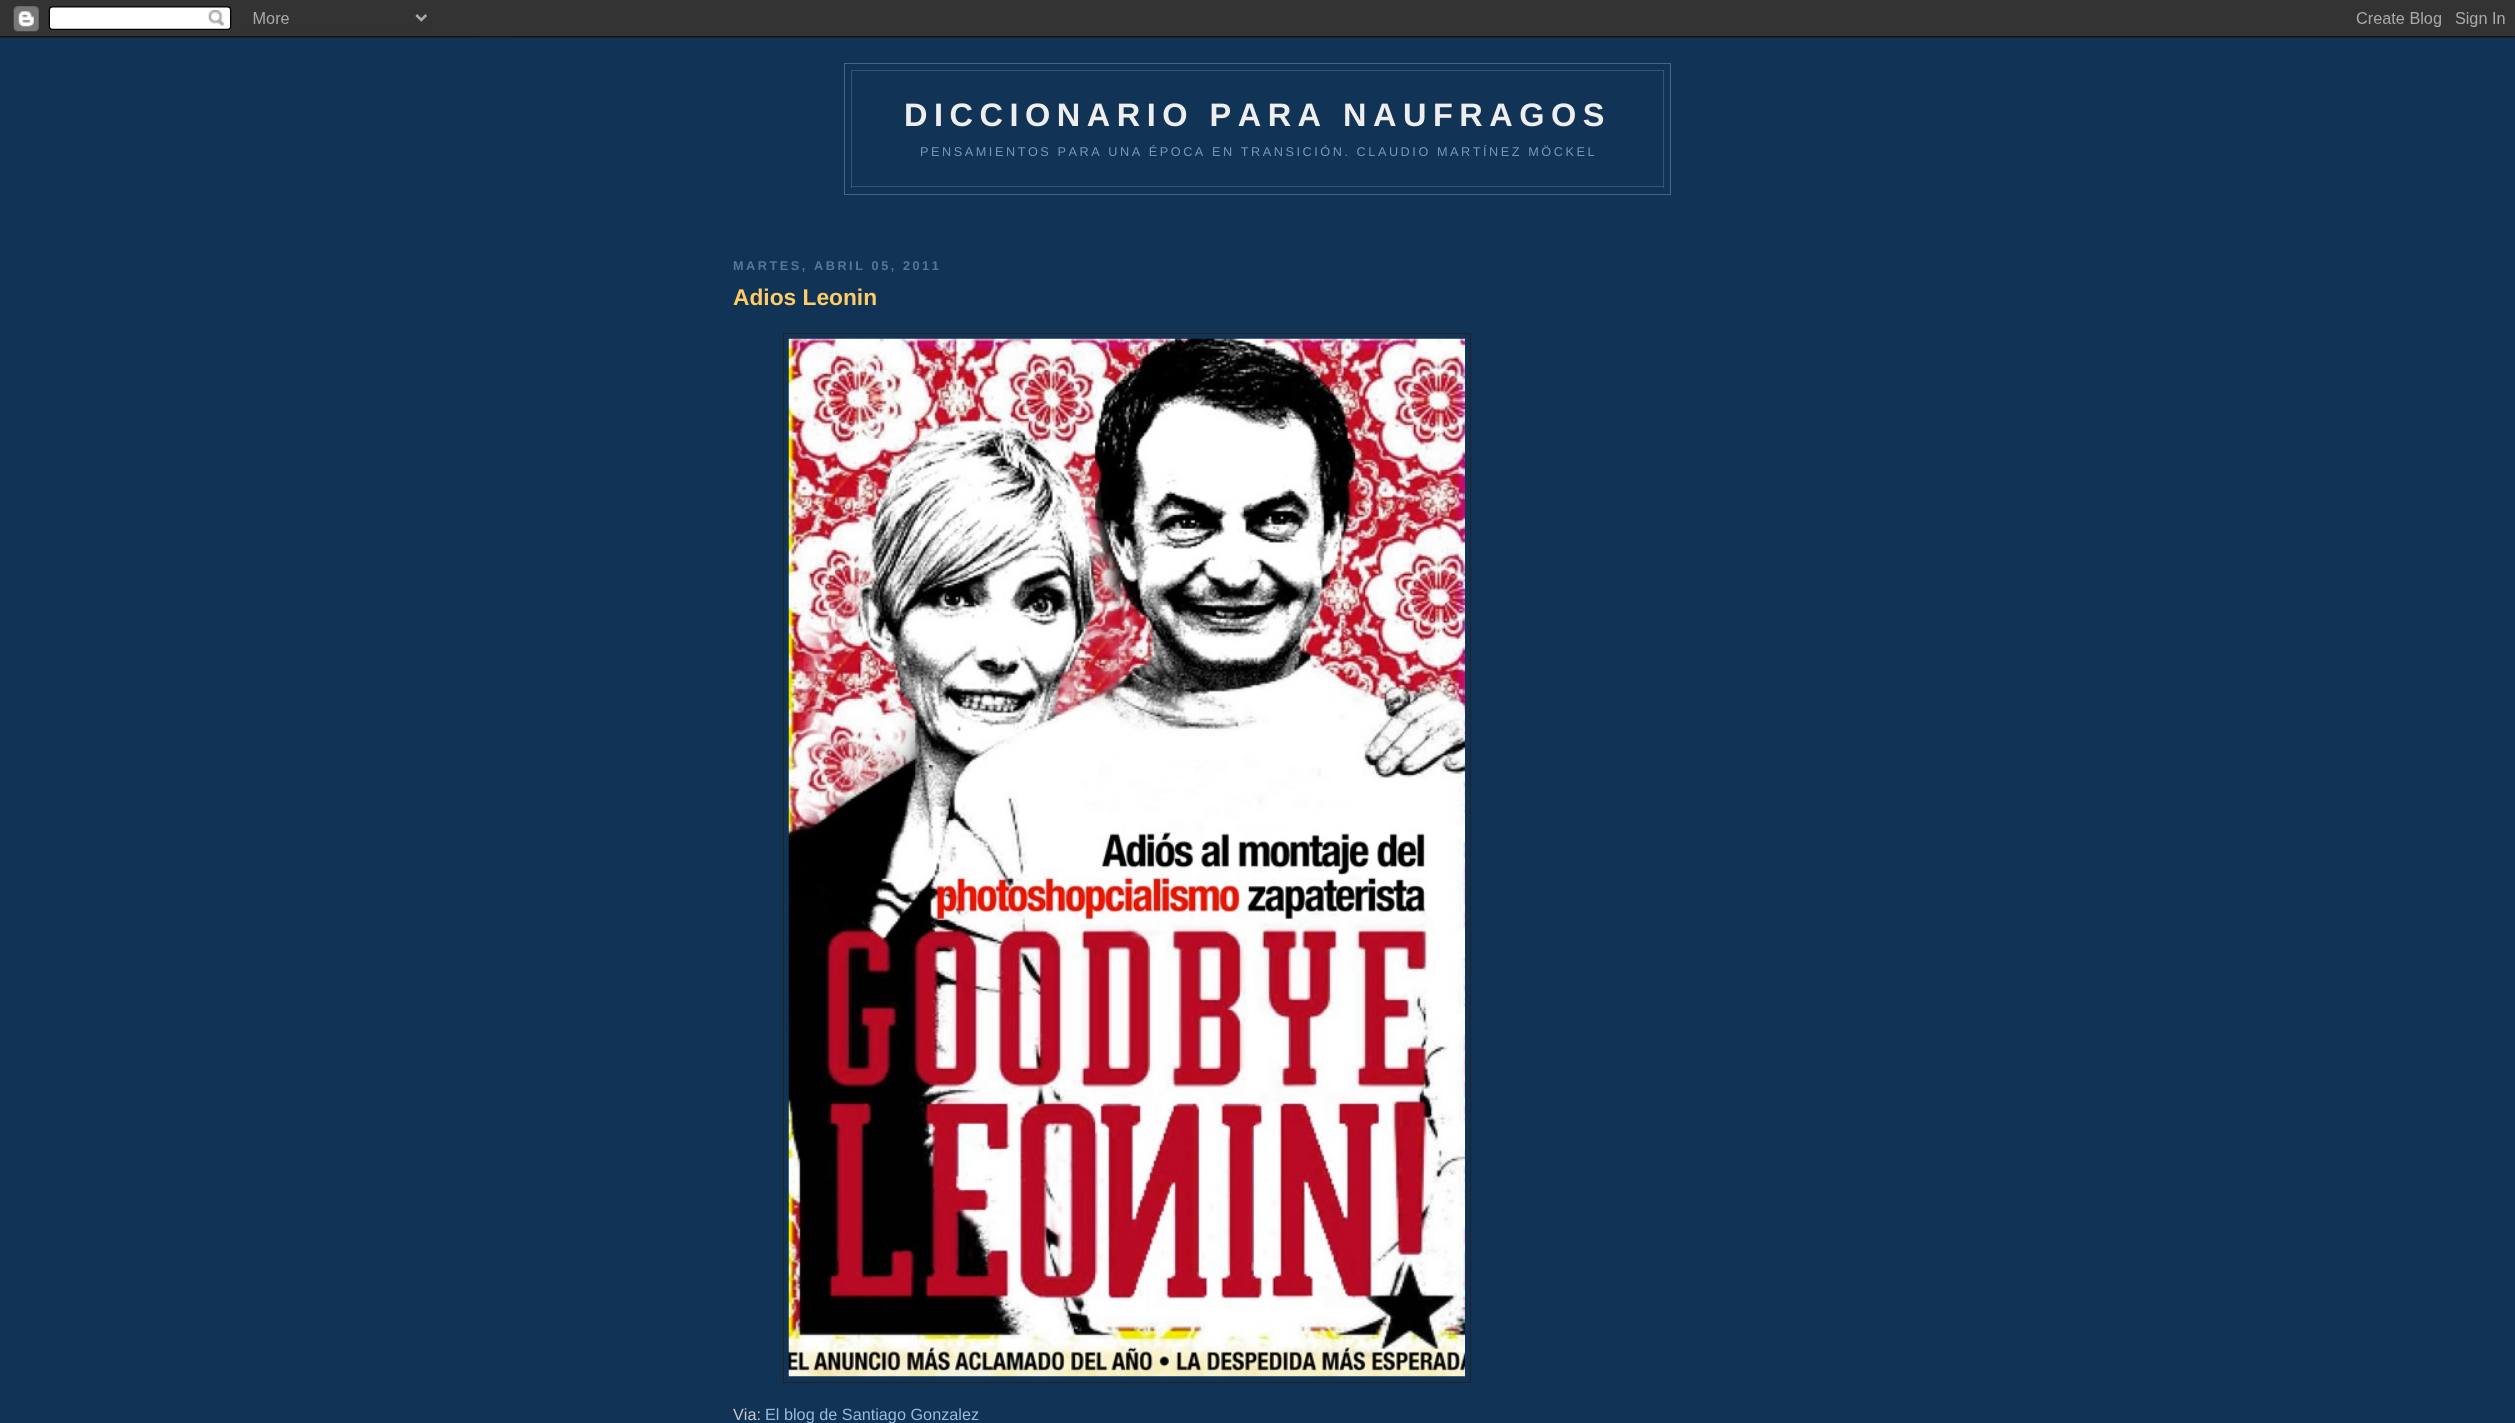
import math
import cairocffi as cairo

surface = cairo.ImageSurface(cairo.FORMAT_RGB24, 2515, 1423)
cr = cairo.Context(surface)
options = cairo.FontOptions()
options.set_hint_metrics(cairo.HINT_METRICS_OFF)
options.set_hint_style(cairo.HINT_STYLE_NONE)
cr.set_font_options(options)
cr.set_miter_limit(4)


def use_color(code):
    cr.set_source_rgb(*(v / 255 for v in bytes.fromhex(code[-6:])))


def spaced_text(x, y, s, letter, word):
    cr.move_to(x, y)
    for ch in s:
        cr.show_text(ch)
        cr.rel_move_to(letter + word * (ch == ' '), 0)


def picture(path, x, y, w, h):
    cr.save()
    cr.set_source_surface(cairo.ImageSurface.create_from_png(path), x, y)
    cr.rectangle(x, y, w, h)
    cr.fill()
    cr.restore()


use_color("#113355")
cr.paint()
picture("img1.png", 0, 0, 2515, 38)
cr.rectangle(844.5, 63.5, 826, 131)
use_color("#446688")
cr.set_line_width(1)
cr.stroke()
use_color("#335577")
cr.rectangle(851, 70, 813, 1)
cr.fill()
cr.rectangle(1663, 70, 1, 118)
cr.fill()
cr.rectangle(851, 70, 1, 74)
cr.fill()
cr.select_font_face("Liberation Sans", cairo.FONT_SLANT_NORMAL, cairo.FONT_WEIGHT_BOLD)
cr.set_font_size(32.5)
use_color("#eeeeee")
spaced_text(904, 126, "DICCIONARIO PARA NAUFRAGOS", 6.5, 0)
use_color("#335577")
cr.rectangle(851, 186, 813, 1)
cr.fill()
cr.rectangle(851, 144, 1, 44)
cr.fill()
cr.select_font_face("Liberation Sans")
cr.set_font_size(12.68)
use_color("#7799bb")
spaced_text(920, 156, "PENSAMIENTOS PARA UNA ÉPOCA EN TRANSICIÓN. CLAUDIO MARTÍNEZ MÖCKEL", 2.55, 0)
cr.select_font_face("Liberation Sans", cairo.FONT_SLANT_NORMAL, cairo.FONT_WEIGHT_BOLD)
use_color("#557799")
spaced_text(733, 270, "MARTES, ABRIL 05, 2011", 2.55, 0)
cr.set_font_size(22.75)
use_color("#ffcc66")
cr.move_to(733, 305)
cr.show_text("Adios Leonin")
cr.rectangle(783.5, 333.5, 687, 1049)
use_color("#222222")
cr.stroke()
picture("img2.png", 788, 338, 677, 1039)
cr.select_font_face("Liberation Sans")
cr.set_font_size(16.25)
use_color("#cccccc")
cr.move_to(733, 1420)
cr.show_text("Via:")
use_color("#99bbdd")
cr.move_to(765, 1420)
cr.show_text("El blog de Santiago Gonzalez")
surface.write_to_png("result.png")
